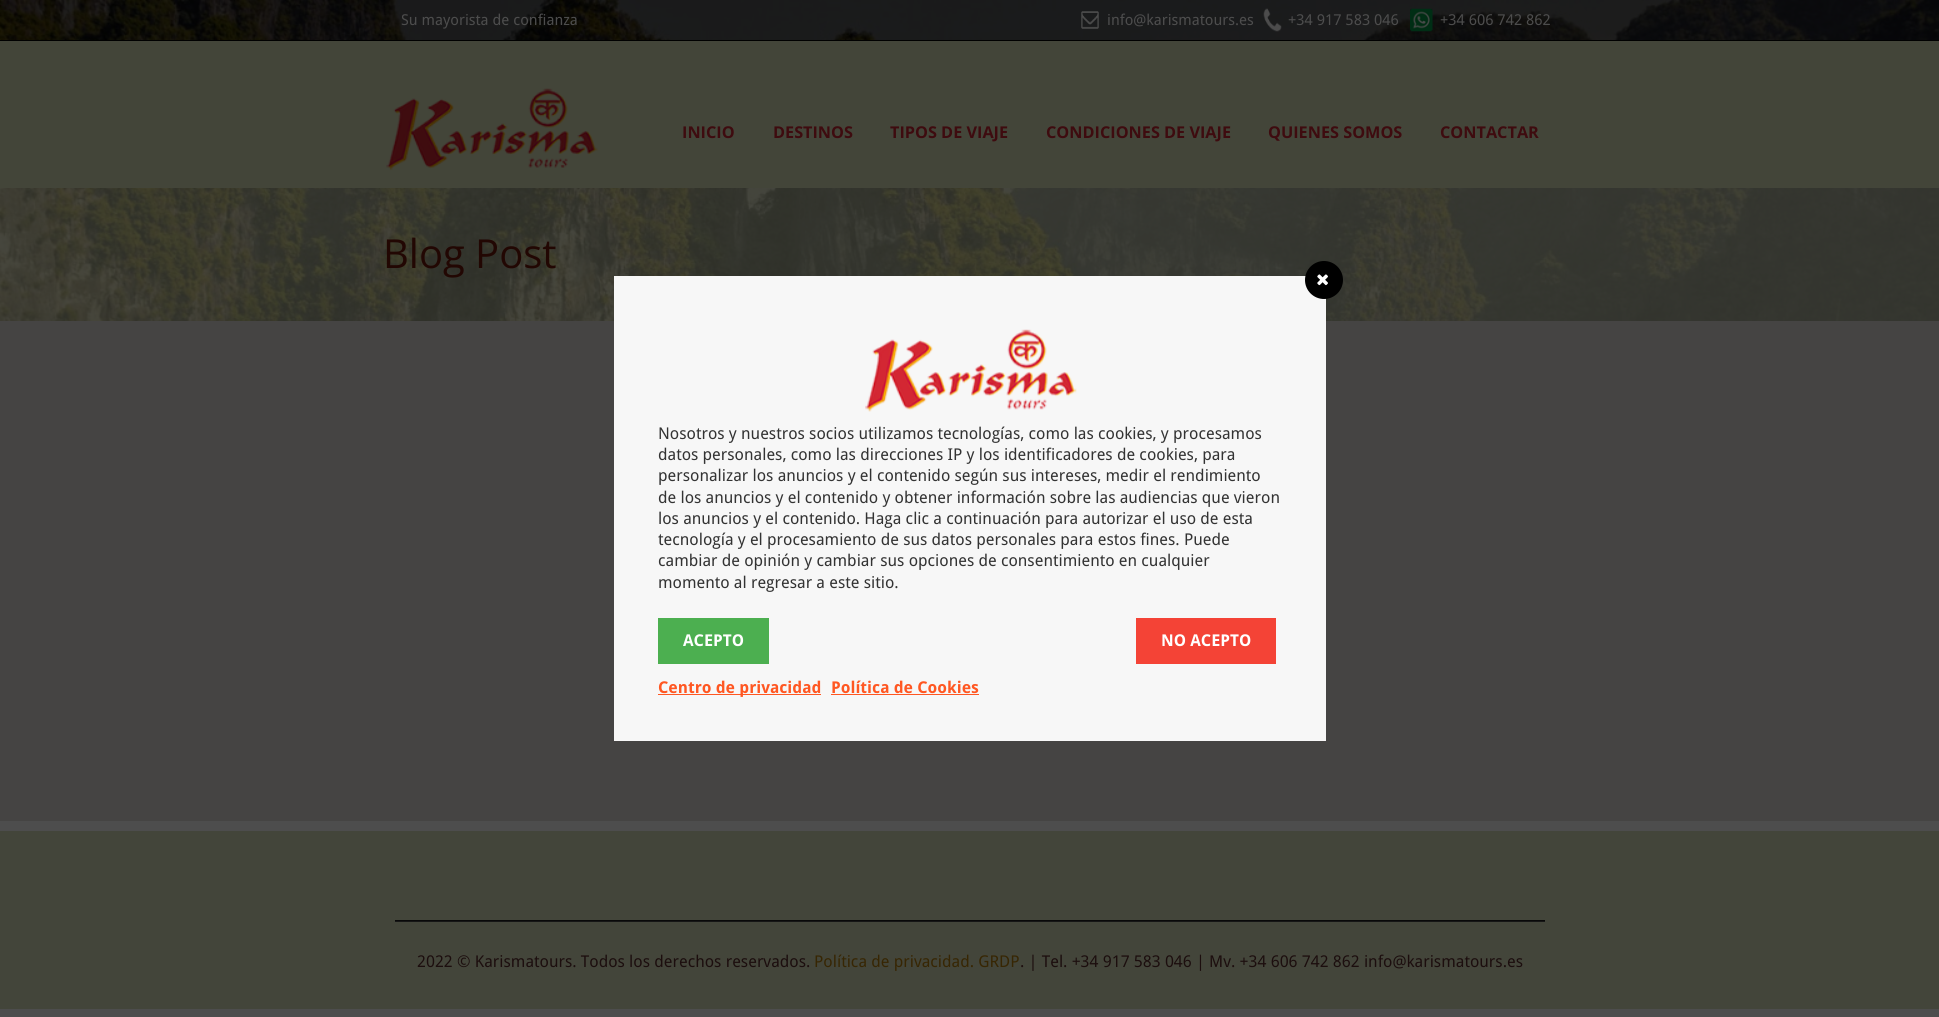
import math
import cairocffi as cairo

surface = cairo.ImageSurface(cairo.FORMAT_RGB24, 1939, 1017)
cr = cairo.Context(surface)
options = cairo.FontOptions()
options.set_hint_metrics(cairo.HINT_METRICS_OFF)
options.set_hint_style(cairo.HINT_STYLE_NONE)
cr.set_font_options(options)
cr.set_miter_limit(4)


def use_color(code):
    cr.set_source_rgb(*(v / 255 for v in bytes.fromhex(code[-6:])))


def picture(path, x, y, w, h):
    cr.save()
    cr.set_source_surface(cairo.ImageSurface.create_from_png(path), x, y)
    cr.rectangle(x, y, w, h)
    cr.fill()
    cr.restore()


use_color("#4d4d4d")
cr.paint()
picture("img1.png", 0, 0, 1939, 321)
cr.set_source_rgba(0, 0, 0, 0.6)
cr.rectangle(0, 0, 1939, 40)
cr.fill()
use_color("#000000")
cr.rectangle(0, 40, 1939, 1)
cr.fill()
cr.select_font_face("Droid Sans")
cr.set_font_size(15)
use_color("#4d4d4d")
cr.move_to(401, 25)
cr.show_text("Su mayorista de confianza")
picture("img2.png", 1081, 11, 18, 18)
cr.move_to(1107, 25)
cr.show_text("info@karismatours.es")
picture("img3.png", 1263, 8, 19, 24)
cr.move_to(1288, 25)
cr.show_text("+34 917 583 046")
picture("img4.png", 1410, 8, 23, 24)
cr.move_to(1440, 25)
cr.show_text("+34 606 742 862")
use_color("#434539")
cr.rectangle(0, 41, 1939, 147)
cr.fill()
picture("img5.png", 386, 88, 212, 83)
cr.select_font_face("Open Sans", cairo.FONT_SLANT_NORMAL, cairo.FONT_WEIGHT_BOLD)
cr.set_font_size(16.25)
use_color("#3e0b0f")
cr.move_to(682, 138)
cr.show_text("INICIO")
cr.move_to(773, 138)
cr.show_text("DESTINOS")
cr.move_to(890, 138)
cr.show_text("TIPOS DE VIAJE")
cr.move_to(1046, 138)
cr.show_text("CONDICIONES DE VIAJE")
cr.move_to(1268, 138)
cr.show_text("QUIENES SOMOS")
cr.move_to(1440, 138)
cr.show_text("CONTACTAR")
cr.set_source_rgba(0.263, 0.271, 0.224, 0.7)
cr.rectangle(0, 188, 1939, 133)
cr.fill()
cr.select_font_face("Open Sans")
cr.set_font_size(40)
use_color("#220703")
cr.move_to(383, 268)
cr.show_text("Blog Post")
use_color("#454443")
cr.rectangle(0, 321, 1939, 500)
cr.fill()
use_color("#43453a")
cr.rectangle(0, 831, 1939, 178)
cr.fill()
use_color("#090909")
cr.rectangle(395, 920, 1150, 1)
cr.fill()
use_color("#161616")
cr.rectangle(395, 921, 1150, 1)
cr.fill()
cr.select_font_face("Droid Sans")
cr.set_font_size(16.25)
use_color("#1c0e0e")
cr.move_to(417, 967)
cr.show_text("2022 © Karismatours. Todos los derechos reservados.")
use_color("#372603")
cr.move_to(814, 967)
cr.show_text("Política de privacidad. GRDP")
use_color("#1c0e0e")
cr.move_to(1020, 967)
cr.show_text(". | Tel. +34 917 583 046 | Mv. +34 606 742 862 info@karismatours.es")
use_color("#f7f7f7")
cr.rectangle(614, 276, 712, 465)
cr.fill()
use_color("#000000")
cr.arc(1324, 280, 19, 0, 2 * math.pi)
cr.fill()
picture("img6.png", 1317, 274, 11, 12)
picture("img7.png", 865, 329, 212, 83)
use_color("#333333")
cr.move_to(658, 439)
cr.show_text("Nosotros y nuestros socios utilizamos tecnologías, como las cookies, y procesamos")
cr.move_to(658, 460)
cr.show_text("datos personales, como las direcciones IP y los identificadores de cookies, para")
cr.move_to(658, 481)
cr.show_text("personalizar los anuncios y el contenido según sus intereses, medir el rendimiento")
cr.move_to(658, 503)
cr.show_text("de los anuncios y el contenido y obtener información sobre las audiencias que vieron")
cr.move_to(658, 524)
cr.show_text("los anuncios y el contenido. Haga clic a continuación para autorizar el uso de esta")
cr.move_to(658, 545)
cr.show_text("tecnología y el procesamiento de sus datos personales para estos fines. Puede")
cr.move_to(658, 566)
cr.show_text("cambiar de opinión y cambiar sus opciones de consentimiento en cualquier")
cr.move_to(658, 588)
cr.show_text("momento al regresar a este sitio.")
use_color("#4caf50")
cr.rectangle(658, 618, 111, 46)
cr.fill()
cr.select_font_face("Droid Sans", cairo.FONT_SLANT_NORMAL, cairo.FONT_WEIGHT_BOLD)
use_color("#ffffff")
cr.move_to(683, 646)
cr.show_text("ACEPTO")
use_color("#f44336")
cr.rectangle(1136, 618, 140, 46)
cr.fill()
use_color("#ffffff")
cr.move_to(1161, 646)
cr.show_text("NO ACEPTO")
use_color("#ff5722")
cr.rectangle(658, 694, 163, 1)
cr.fill()
cr.move_to(658, 693)
cr.show_text("Centro de privacidad")
cr.move_to(831, 693)
cr.show_text("Política de Cookies")
cr.rectangle(831, 694, 148, 1)
cr.fill()
surface.write_to_png("result.png")
